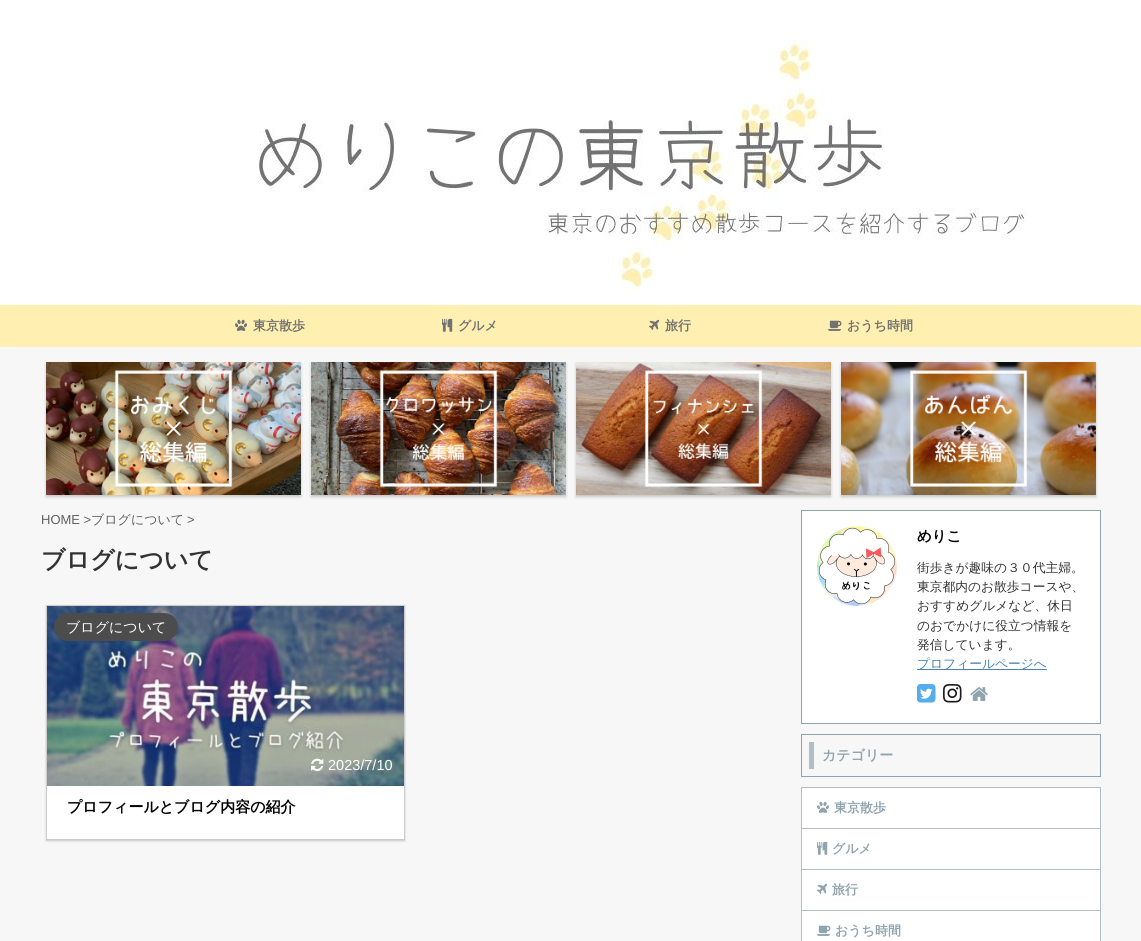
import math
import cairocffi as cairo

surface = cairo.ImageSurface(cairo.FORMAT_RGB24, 1141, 941)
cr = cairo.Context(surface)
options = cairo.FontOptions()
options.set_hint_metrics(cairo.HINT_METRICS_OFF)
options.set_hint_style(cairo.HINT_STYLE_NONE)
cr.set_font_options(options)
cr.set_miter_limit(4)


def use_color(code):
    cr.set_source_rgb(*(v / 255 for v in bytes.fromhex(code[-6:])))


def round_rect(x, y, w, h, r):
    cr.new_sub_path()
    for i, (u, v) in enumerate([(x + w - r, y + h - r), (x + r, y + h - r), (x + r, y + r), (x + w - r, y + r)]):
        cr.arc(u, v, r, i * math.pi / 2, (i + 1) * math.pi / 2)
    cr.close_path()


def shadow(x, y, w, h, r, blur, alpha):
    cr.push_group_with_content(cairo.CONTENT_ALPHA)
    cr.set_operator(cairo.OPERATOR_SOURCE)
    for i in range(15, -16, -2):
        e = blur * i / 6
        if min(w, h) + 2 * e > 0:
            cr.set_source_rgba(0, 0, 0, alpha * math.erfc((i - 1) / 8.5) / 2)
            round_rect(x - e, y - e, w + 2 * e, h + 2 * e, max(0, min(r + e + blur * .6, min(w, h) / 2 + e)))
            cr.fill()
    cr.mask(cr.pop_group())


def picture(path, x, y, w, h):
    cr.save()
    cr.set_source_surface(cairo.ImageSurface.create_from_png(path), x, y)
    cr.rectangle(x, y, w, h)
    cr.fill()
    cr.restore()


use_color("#f7f7f7")
cr.paint()
use_color("#ffffff")
cr.rectangle(0, 0, 1141, 305)
cr.fill()
picture("img1.png", 259, 40, 768, 250)
use_color("#ffefb1")
round_rect(0.5, 305.5, 1140, 41, 0.5)
cr.fill_preserve()
cr.set_line_width(1)
cr.stroke()
picture("img2.png", 235, 319, 12, 12)
cr.select_font_face("WenQuanYi Zen Hei", cairo.FONT_SLANT_NORMAL, cairo.FONT_WEIGHT_BOLD)
cr.set_font_size(13)
use_color("#727272")
cr.move_to(253, 330)
cr.show_text("東京散歩")
picture("img3.png", 442, 318, 11, 14)
cr.move_to(458, 330)
cr.show_text("グルメ")
picture("img4.png", 649, 319, 11, 11)
cr.move_to(665, 330)
cr.show_text("旅行")
picture("img5.png", 828, 320, 14, 11)
cr.move_to(847, 330)
cr.show_text("おうち時間")
use_color("#000000")
shadow(46, 364, 255, 133, 0, 1.5, 0.2)
picture("img6.png", 46, 362, 255, 133)
shadow(311, 364, 255, 133, 0, 1.5, 0.2)
picture("img7.png", 311, 362, 255, 133)
shadow(576, 364, 255, 133, 0, 1.5, 0.2)
picture("img8.png", 576, 362, 255, 133)
shadow(841, 364, 255, 133, 0, 1.5, 0.2)
picture("img9.png", 841, 362, 255, 133)
cr.select_font_face("Liberation Sans")
use_color("#616161")
cr.move_to(41, 524)
cr.show_text("HOME >")
cr.select_font_face("WenQuanYi Zen Hei Medium")
cr.move_to(91, 524)
cr.show_text("ブログについて")
cr.select_font_face("Liberation Sans")
cr.move_to(187, 524)
cr.show_text(">")
cr.select_font_face("WenQuanYi Zen Hei", cairo.FONT_SLANT_NORMAL, cairo.FONT_WEIGHT_BOLD)
cr.set_font_size(24)
use_color("#333333")
cr.move_to(41, 568)
cr.show_text("ブログについて")
use_color("#000000")
shadow(46, 606, 359, 235, 0, 1, 0.2)
use_color("#ffffff")
cr.rectangle(47, 786, 357, 53)
cr.fill()
cr.rectangle(46.5, 605.5, 358, 234)
use_color("#cccccc")
cr.stroke()
picture("img10.png", 47, 606, 357, 180)
use_color("#4c4c4c")
round_rect(54, 613, 124, 28, 14)
cr.fill()
cr.select_font_face("WenQuanYi Zen Hei Medium")
cr.set_font_size(14)
use_color("#ffffff")
cr.move_to(66, 632)
cr.show_text("ブログについて")
picture("img11.png", 311, 758, 13, 13)
cr.select_font_face("Liberation Sans")
cr.set_font_size(14.5)
cr.move_to(328, 770)
cr.show_text("2023/7/10")
cr.select_font_face("WenQuanYi Zen Hei", cairo.FONT_SLANT_NORMAL, cairo.FONT_WEIGHT_BOLD)
cr.set_font_size(15)
use_color("#000000")
cr.move_to(67, 812)
cr.show_text("プロフィールとブログ内容の紹介")
use_color("#ffffff")
cr.rectangle(801.5, 510.5, 299, 213)
cr.fill_preserve()
use_color("#90a4ae")
cr.stroke()
picture("img12.png", 817, 526, 80, 80)
cr.set_font_size(14.5)
use_color("#000000")
cr.move_to(917, 541)
cr.show_text("めりこ")
cr.select_font_face("WenQuanYi Zen Hei Medium")
cr.set_font_size(12.75)
use_color("#333333")
cr.move_to(917, 572)
cr.show_text("街歩きが趣味の３０代主婦。")
cr.move_to(917, 591)
cr.show_text("東京都内のお散歩コースや、")
cr.move_to(917, 610)
cr.show_text("おすすめグルメなど、休日")
cr.move_to(917, 630)
cr.show_text("のおでかけに役立つ情報を")
cr.move_to(917, 649)
cr.show_text("発信しています。")
use_color("#4682b4")
cr.rectangle(917, 669, 130, 1)
cr.fill()
cr.move_to(917, 668)
cr.show_text("プロフィールページへ")
picture("img13.png", 917, 684, 19, 19)
picture("img14.png", 943, 684, 19, 19)
picture("img15.png", 970, 687, 18, 14)
cr.rectangle(801.5, 734.5, 299, 42)
use_color("#90a4ae")
cr.stroke()
use_color("#b0bec5")
cr.rectangle(809, 742, 5, 27)
cr.fill()
cr.select_font_face("WenQuanYi Zen Hei", cairo.FONT_SLANT_NORMAL, cairo.FONT_WEIGHT_BOLD)
cr.set_font_size(14)
use_color("#90a4ae")
cr.move_to(822, 760)
cr.show_text("カテゴリー")
use_color("#b0bec5")
cr.rectangle(801, 787, 300, 1)
cr.fill()
cr.rectangle(1100, 787, 1, 41)
cr.fill()
cr.rectangle(801, 787, 1, 41)
cr.fill()
use_color("#ffffff")
cr.rectangle(802, 788, 298, 40)
cr.fill()
picture("img16.png", 817, 801, 12, 12)
cr.set_font_size(13)
use_color("#90a4ae")
cr.move_to(834, 812)
cr.show_text("東京散歩")
use_color("#b0bec5")
cr.rectangle(801, 828, 300, 1)
cr.fill()
cr.rectangle(1100, 828, 1, 41)
cr.fill()
cr.rectangle(801, 828, 1, 41)
cr.fill()
use_color("#ffffff")
cr.rectangle(802, 829, 298, 40)
cr.fill()
picture("img17.png", 817, 841, 11, 14)
use_color("#90a4ae")
cr.move_to(832, 853)
cr.show_text("グルメ")
use_color("#b0bec5")
cr.rectangle(801, 869, 300, 1)
cr.fill()
cr.rectangle(1100, 869, 1, 41)
cr.fill()
cr.rectangle(801, 869, 1, 41)
cr.fill()
use_color("#ffffff")
cr.rectangle(802, 870, 298, 40)
cr.fill()
picture("img18.png", 817, 883, 11, 11)
use_color("#90a4ae")
cr.move_to(832, 894)
cr.show_text("旅行")
cr.rectangle(801.5, 910.5, 299, 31)
use_color("#b0bec5")
cr.stroke()
use_color("#ffffff")
cr.rectangle(802, 911, 298, 30)
cr.fill()
picture("img19.png", 817, 925, 14, 11)
use_color("#90a4ae")
cr.move_to(835, 935)
cr.show_text("おうち時間")
surface.write_to_png("result.png")
